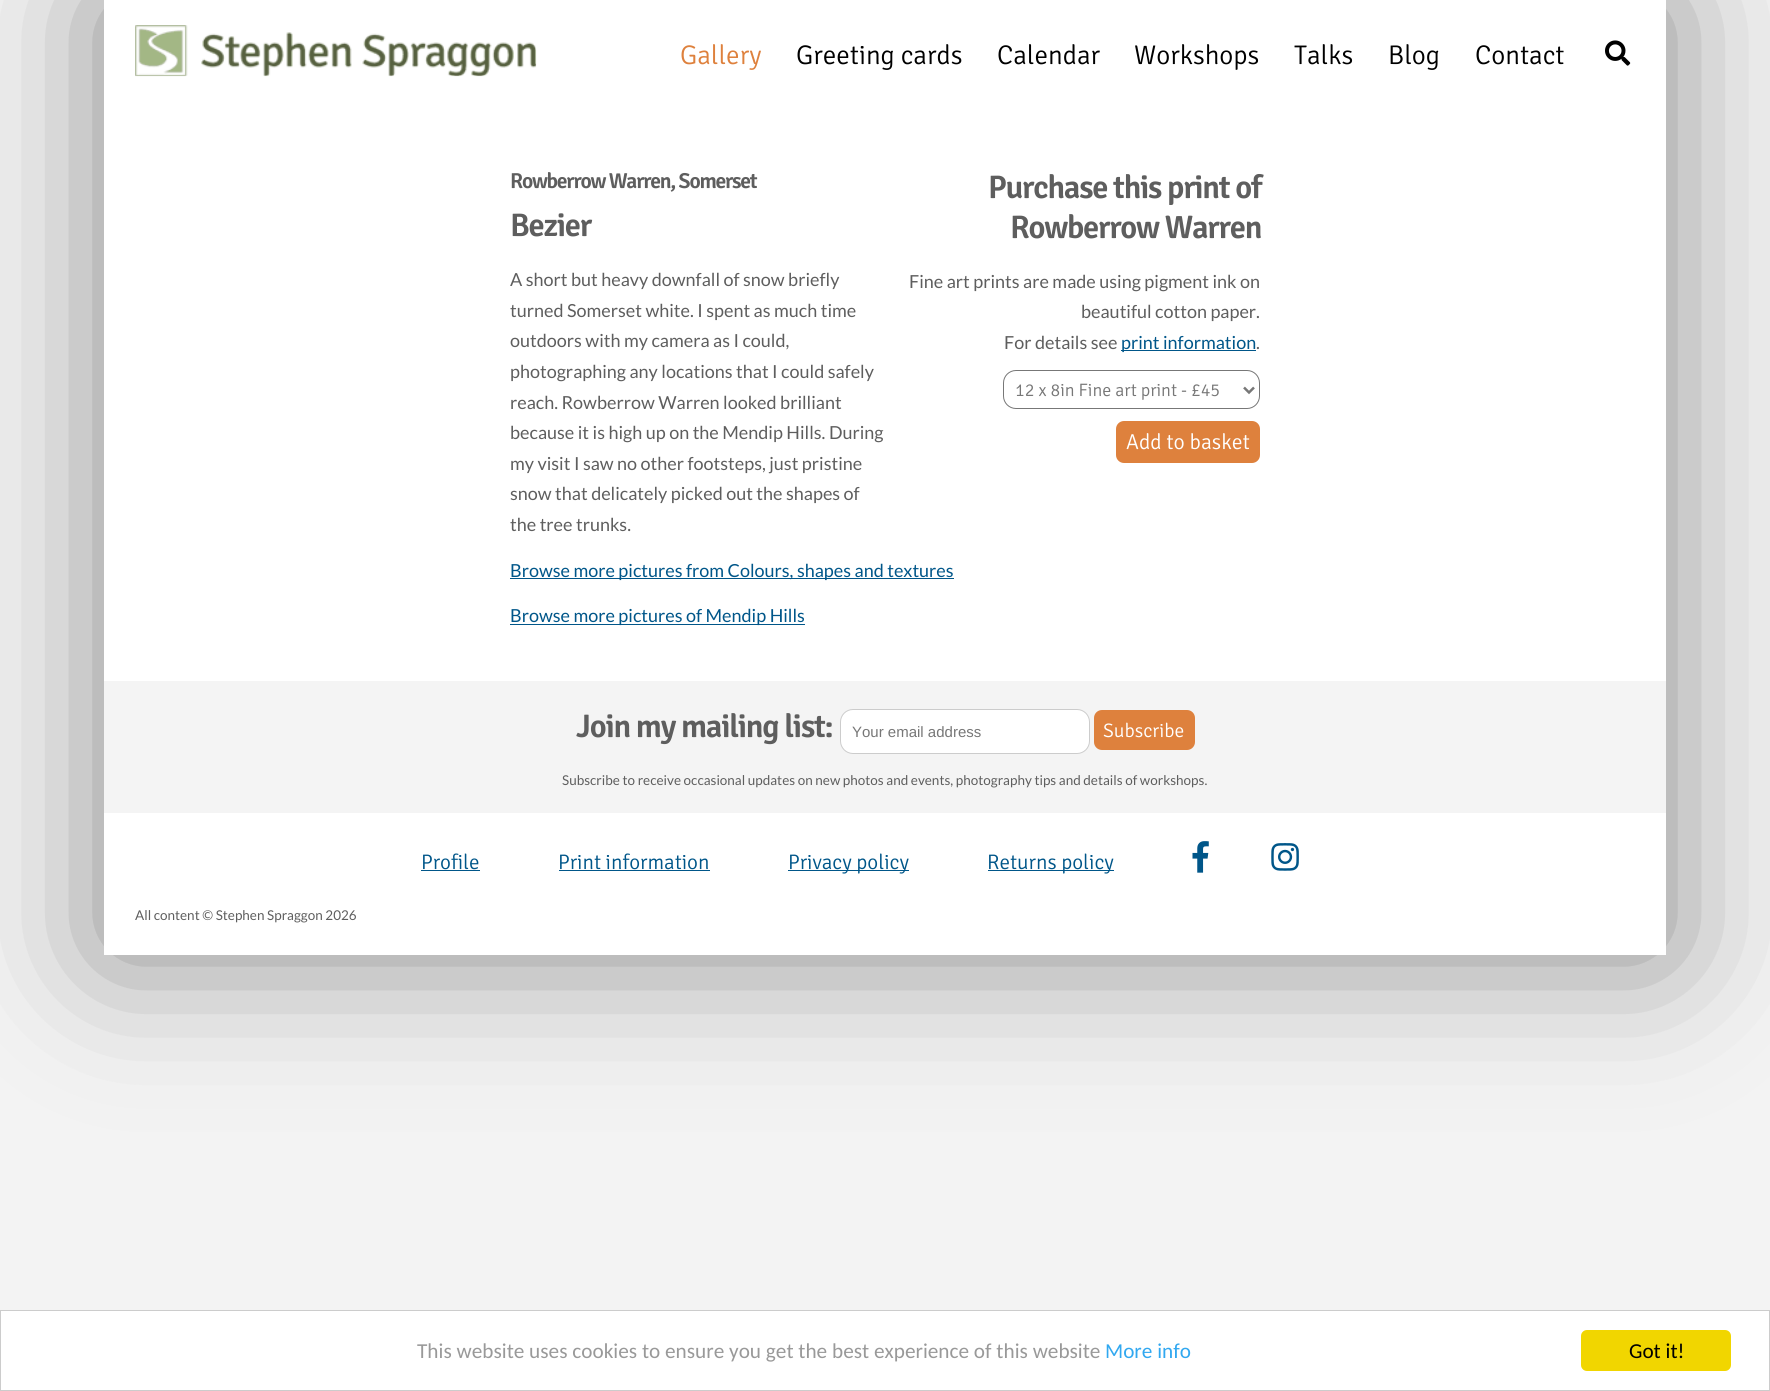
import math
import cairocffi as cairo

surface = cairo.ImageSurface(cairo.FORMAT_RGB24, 1770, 1391)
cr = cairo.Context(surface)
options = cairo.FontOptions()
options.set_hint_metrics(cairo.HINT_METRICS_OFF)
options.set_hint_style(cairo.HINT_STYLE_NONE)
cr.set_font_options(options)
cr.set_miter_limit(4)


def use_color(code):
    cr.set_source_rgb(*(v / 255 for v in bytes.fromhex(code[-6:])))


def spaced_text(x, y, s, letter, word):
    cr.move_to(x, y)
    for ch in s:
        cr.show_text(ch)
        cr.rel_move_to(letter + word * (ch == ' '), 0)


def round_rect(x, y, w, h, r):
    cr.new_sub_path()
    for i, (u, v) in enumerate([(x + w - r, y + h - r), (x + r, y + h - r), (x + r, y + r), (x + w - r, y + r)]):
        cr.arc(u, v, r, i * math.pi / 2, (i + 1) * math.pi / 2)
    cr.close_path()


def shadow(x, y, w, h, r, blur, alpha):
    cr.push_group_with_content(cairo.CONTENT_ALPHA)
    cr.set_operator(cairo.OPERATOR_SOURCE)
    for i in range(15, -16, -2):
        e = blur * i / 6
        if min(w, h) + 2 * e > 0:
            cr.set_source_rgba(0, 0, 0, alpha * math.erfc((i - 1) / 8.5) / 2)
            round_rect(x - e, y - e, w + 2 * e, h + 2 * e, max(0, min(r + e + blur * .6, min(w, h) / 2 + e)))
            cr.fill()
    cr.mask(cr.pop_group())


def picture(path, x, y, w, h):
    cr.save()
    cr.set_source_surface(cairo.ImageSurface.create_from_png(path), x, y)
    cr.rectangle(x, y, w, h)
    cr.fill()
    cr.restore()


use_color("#f3f3f3")
cr.paint()
use_color("#888888")
shadow(104, 0, 1562, 955, 0, 71, 1)
use_color("#ffffff")
cr.rectangle(104, 0, 1562, 955)
cr.fill()
picture("img1.png", 135, 25, 402, 52)
cr.select_font_face("Signika Light")
cr.set_font_size(27)
use_color("#de813d")
cr.move_to(680, 64)
cr.show_text("Gallery")
use_color("#000000")
cr.move_to(796, 64)
cr.show_text("Greeting cards")
cr.move_to(997, 64)
cr.show_text("Calendar")
cr.move_to(1134, 64)
cr.show_text("Workshops")
cr.move_to(1294, 64)
cr.show_text("Talks")
cr.move_to(1388, 64)
cr.show_text("Blog")
cr.move_to(1475, 64)
cr.show_text("Contact")
picture("img2.png", 1605, 40, 26, 26)
cr.select_font_face("Signika SemiBold")
cr.set_font_size(21.6)
use_color("#5e5e5e")
spaced_text(510, 188, "Rowberrow Warren, Somerset", -1.25, 0)
cr.set_font_size(32.5)
spaced_text(510, 236, "Bezier", -1.25, 0)
cr.select_font_face("Lato")
cr.set_font_size(18)
cr.move_to(510, 286)
cr.show_text("A short but heavy downfall of snow briefly")
cr.move_to(510, 317)
cr.show_text("turned Somerset white. I spent as much time")
cr.move_to(510, 347)
cr.show_text("outdoors with my camera as I could,")
cr.move_to(510, 378)
cr.show_text("photographing any locations that I could safely")
cr.move_to(510, 409)
cr.show_text("reach. Rowberrow Warren looked brilliant")
cr.move_to(510, 439)
cr.show_text("because it is high up on the Mendip Hills. During")
cr.move_to(510, 470)
cr.show_text("my visit I saw no other footsteps, just pristine")
cr.move_to(510, 500)
cr.show_text("snow that delicately picked out the shapes of")
cr.move_to(510, 531)
cr.show_text("the tree trunks.")
use_color("#005689")
cr.rectangle(510, 578, 444, 1)
cr.fill()
cr.move_to(510, 577)
cr.show_text("Browse more pictures from Colours, shapes and textures")
cr.rectangle(510, 624, 295, 1)
cr.fill()
cr.move_to(510, 622)
cr.show_text("Browse more pictures of Mendip Hills")
cr.select_font_face("Signika SemiBold")
cr.set_font_size(32.5)
use_color("#5e5e5e")
spaced_text(988, 198, "Purchase this print of", -1.25, 0)
spaced_text(1010, 238, "Rowberrow Warren", -1.25, 0)
cr.select_font_face("Lato")
cr.set_font_size(18)
cr.move_to(909, 288)
cr.show_text("Fine art prints are made using pigment ink on")
cr.move_to(1081, 318)
cr.show_text("beautiful cotton paper.")
cr.move_to(1004, 349)
cr.show_text("For details see")
use_color("#005689")
cr.rectangle(1121, 350, 135, 1)
cr.fill()
cr.move_to(1121, 349)
cr.show_text("print information")
use_color("#5e5e5e")
cr.move_to(1256, 349)
cr.show_text(".")
round_rect(1003.5, 370.5, 256, 38, 12.5)
use_color("#777777")
cr.set_line_width(1)
cr.stroke()
cr.new_path()
cr.move_to(1244, 387.5)
cr.line_to(1249, 392.5)
cr.line_to(1254, 387.5)
cr.set_line_width(2.5)
cr.stroke()
cr.select_font_face("Signika Light")
cr.move_to(1015, 396)
cr.show_text("12 x 8in Fine art print - £45")
use_color("#de813d")
round_rect(1116, 421, 144, 42, 8)
cr.fill()
cr.set_font_size(21.6)
use_color("#ffffff")
cr.move_to(1126, 449)
cr.show_text("Add to basket")
use_color("#f4f4f4")
cr.rectangle(104, 681, 1562, 132)
cr.fill()
cr.select_font_face("Signika SemiBold")
cr.set_font_size(32.5)
use_color("#5e5e5e")
spaced_text(576, 737, "Join my mailing list:", -1.25, 0)
use_color("#ffffff")
round_rect(840.5, 709.5, 249, 44, 12.5)
cr.fill_preserve()
use_color("#cccccc")
cr.set_line_width(1)
cr.stroke()
cr.select_font_face("Liberation Sans")
cr.set_font_size(15)
use_color("#777777")
cr.move_to(852, 737)
cr.show_text("Your email address")
use_color("#de813d")
round_rect(1094, 710, 101, 40, 8)
cr.fill()
cr.select_font_face("Signika Light")
cr.set_font_size(19.5)
use_color("#ffffff")
cr.move_to(1103, 737)
cr.show_text("Subscribe")
cr.select_font_face("Lato")
cr.set_font_size(13.5)
use_color("#5e5e5e")
cr.move_to(562, 785)
cr.show_text("Subscribe to receive occasional updates on new photos and events, photography tips and details of workshops.")
cr.select_font_face("Signika Light")
cr.set_font_size(21)
use_color("#005689")
cr.move_to(421, 869)
cr.show_text("Profile")
cr.rectangle(421, 870, 59, 1)
cr.fill()
cr.move_to(558, 869)
cr.show_text("Print information")
cr.rectangle(559, 870, 151, 1)
cr.fill()
cr.rectangle(788, 870, 121, 1)
cr.fill()
cr.move_to(788, 869)
cr.show_text("Privacy policy")
cr.rectangle(988, 870, 126, 1)
cr.fill()
cr.move_to(987, 869)
cr.show_text("Returns policy")
picture("img3.png", 1192, 841, 17, 32)
picture("img4.png", 1271, 843, 28, 28)
cr.select_font_face("Lato")
cr.set_font_size(13.5)
use_color("#5e5e5e")
cr.move_to(135, 920)
cr.show_text("All content © Stephen Spraggon 2026")
use_color("#ffffff")
cr.rectangle(0.5, 1310.5, 1769, 80)
cr.fill_preserve()
use_color("#cccccc")
cr.stroke()
cr.select_font_face("Carlito")
cr.set_font_size(21.25)
use_color("#999999")
cr.move_to(417, 1358)
cr.show_text("This website uses cookies to ensure you get the best experience of this website")
use_color("#31a8f0")
cr.move_to(1105, 1358)
cr.show_text("More info")
use_color("#f1d600")
round_rect(1581, 1330, 150, 41, 6)
cr.fill()
use_color("#000000")
cr.move_to(1629, 1358)
cr.show_text("Got it!")
surface.write_to_png("result.png")
